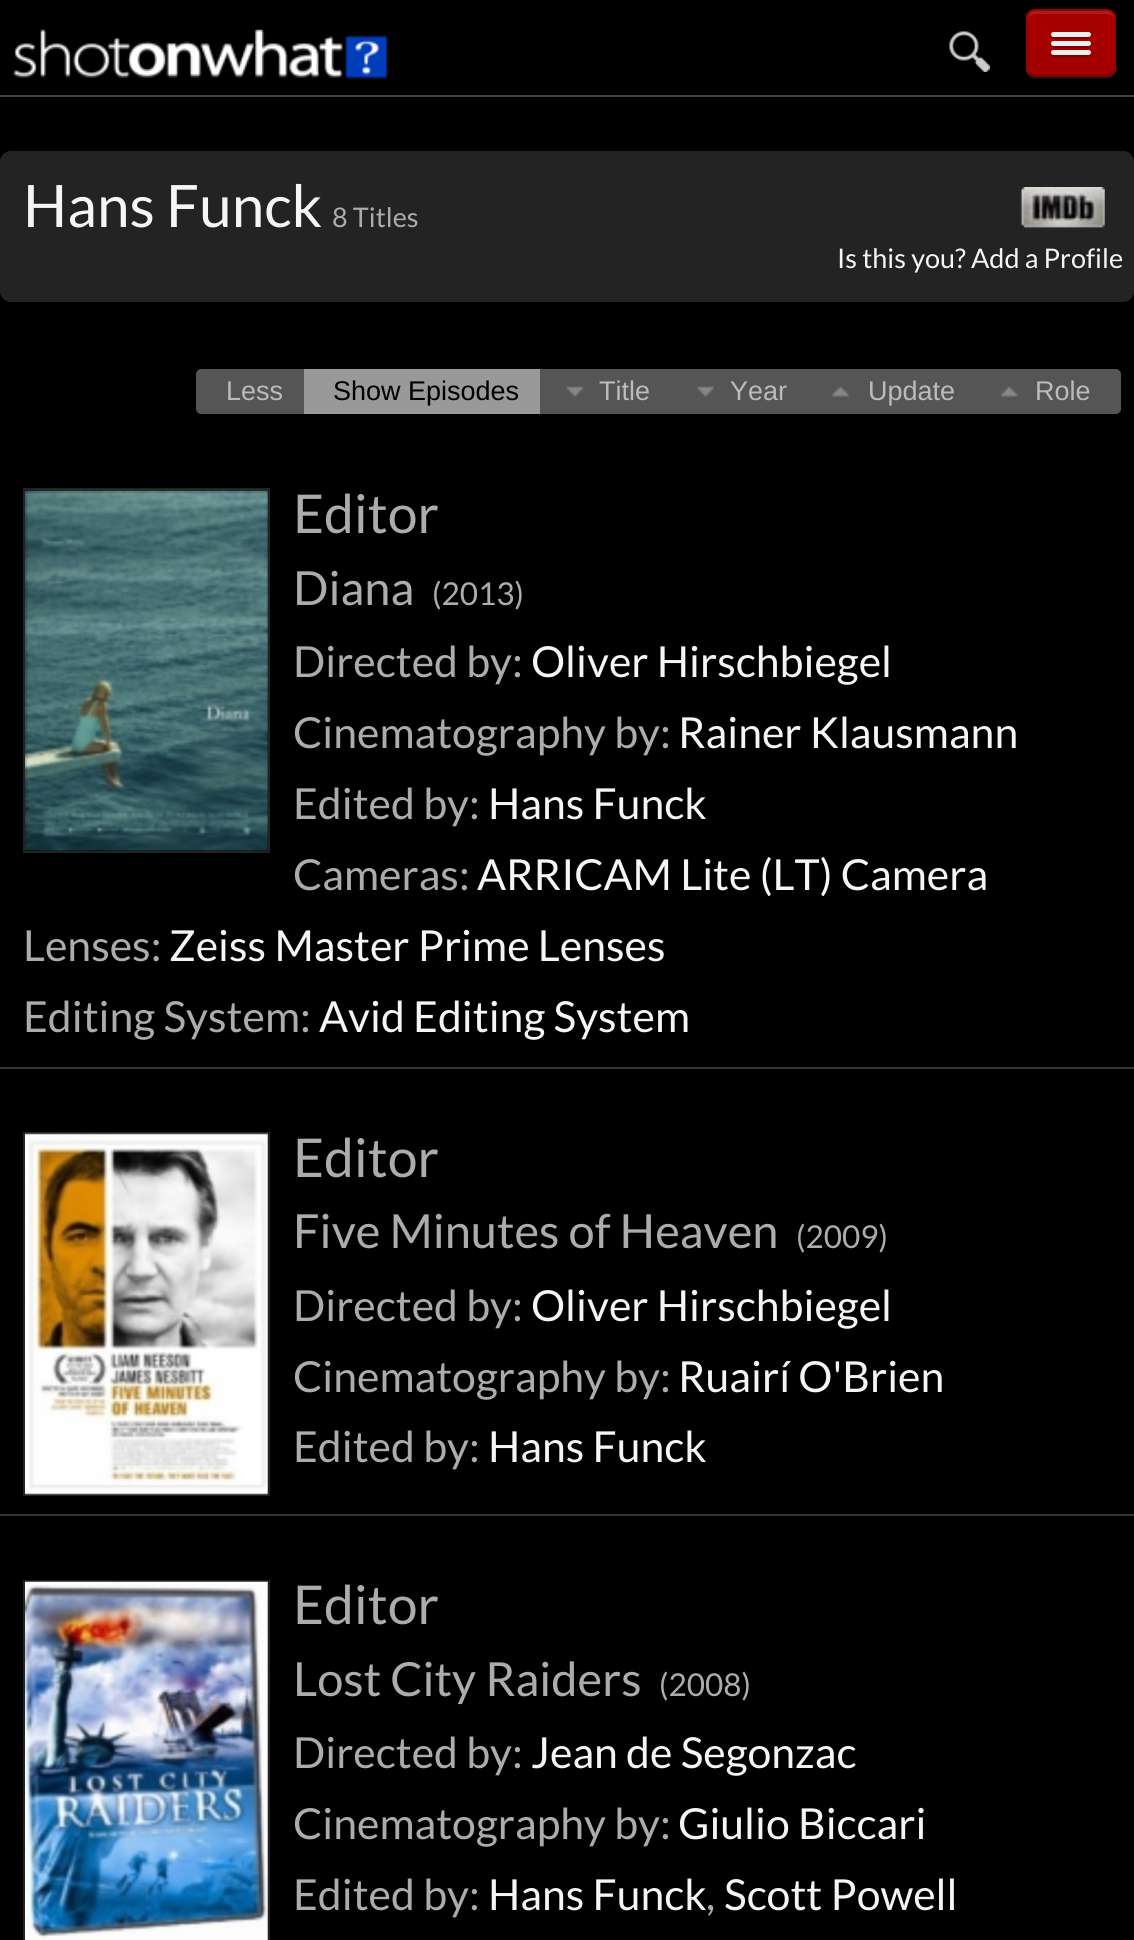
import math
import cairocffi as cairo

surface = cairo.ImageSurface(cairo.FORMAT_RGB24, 1134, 1940)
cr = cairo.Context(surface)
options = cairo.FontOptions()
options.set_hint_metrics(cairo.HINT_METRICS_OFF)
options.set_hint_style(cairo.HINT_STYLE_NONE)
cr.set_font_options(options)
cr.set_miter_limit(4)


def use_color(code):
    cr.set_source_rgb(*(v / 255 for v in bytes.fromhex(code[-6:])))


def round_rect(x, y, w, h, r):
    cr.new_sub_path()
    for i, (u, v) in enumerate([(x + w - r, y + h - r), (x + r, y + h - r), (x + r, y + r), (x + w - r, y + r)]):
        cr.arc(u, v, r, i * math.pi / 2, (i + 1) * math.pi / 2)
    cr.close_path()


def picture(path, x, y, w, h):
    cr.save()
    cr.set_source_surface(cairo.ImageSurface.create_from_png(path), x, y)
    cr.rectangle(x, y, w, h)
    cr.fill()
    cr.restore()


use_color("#000000")
cr.paint()
use_color("#444444")
cr.rectangle(0, 95, 1134, 2)
cr.fill()
picture("img1.png", 13, 29, 376, 51)
picture("img2.png", 949, 31, 41, 41)
use_color("#131313")
cr.new_path()
cr.move_to(1026, 68)
cr.curve_to(1026, 81, 1036, 79, 1047, 79)
cr.line_to(1095, 79)
cr.curve_to(1106, 79, 1116, 81, 1116, 68)
cr.curve_to(1116, 72, 1112, 76, 1107, 76)
cr.line_to(1035, 76)
cr.curve_to(1030, 76, 1026, 72, 1026, 68)
cr.close_path()
cr.fill()
use_color("#a70000")
round_rect(1026, 9, 90, 68, 9)
cr.fill()
cr.save()
round_rect(1026, 9, 90, 68, 9)
cr.clip()
gradient = cairo.LinearGradient(1071, 11, 1071, 74)
gradient.add_color_stop_rgba(0, 0.655, 0, 0, 1)
gradient.add_color_stop_rgba(1, 0.643, 0, 0, 1)
cr.set_source(gradient)
cr.rectangle(1026, 11, 90, 63)
cr.fill()
cr.restore()
use_color("#b01a1a")
cr.new_path()
cr.move_to(1035, 14)
cr.line_to(1107, 14)
cr.curve_to(1111, 14, 1114, 17, 1114, 20)
cr.curve_to(1114, 8, 1104, 11, 1095, 11)
cr.line_to(1047, 11)
cr.curve_to(1038, 11, 1028, 8, 1028, 20)
cr.curve_to(1028, 17, 1031, 14, 1035, 14)
cr.close_path()
cr.fill()
cr.new_path()
cr.move_to(1112.5, 73)
cr.curve_to(1111, 74.5, 1109, 75.5, 1107, 75.5)
cr.line_to(1035, 75.5)
cr.curve_to(1033, 75.5, 1031, 74.5, 1029.5, 73)
cr.set_source_rgba(0, 0, 0, 0.25)
cr.set_line_width(2.2)
cr.stroke()
cr.new_path()
cr.move_to(1029.5, 73)
cr.curve_to(1028, 71.5, 1027, 69.5, 1027, 67.5)
cr.line_to(1027, 18)
cr.curve_to(1027, 16, 1028, 14, 1029.5, 12.5)
cr.curve_to(1031, 11, 1033, 10, 1035, 10)
cr.line_to(1107, 10)
cr.curve_to(1109, 10, 1111, 11, 1112.5, 12.5)
cr.curve_to(1114, 14, 1115, 16, 1115, 18)
cr.line_to(1115, 67.5)
cr.curve_to(1115, 69.5, 1114, 71.5, 1112.5, 73)
cr.set_source_rgba(0, 0, 0, 0.1)
cr.stroke()
use_color("#7d0000")
cr.new_path()
cr.move_to(1051, 35)
cr.curve_to(1049, 40, 1059, 39, 1059, 39)
cr.line_to(1083, 39)
cr.curve_to(1083, 39, 1093, 40, 1091, 35)
cr.curve_to(1089, 37, 1053, 37, 1051, 35)
cr.close_path()
cr.fill()
use_color("#eeeeee")
round_rect(1051, 32, 40, 5, 2.5)
cr.fill()
use_color("#7c0000")
cr.new_path()
cr.move_to(1051, 44)
cr.curve_to(1049, 49, 1059, 48, 1059, 48)
cr.line_to(1083, 48)
cr.curve_to(1083, 48, 1093, 49, 1091, 44)
cr.curve_to(1089, 46, 1053, 46, 1051, 44)
cr.close_path()
cr.fill()
use_color("#eeeeee")
round_rect(1051, 41, 40, 5, 2.5)
cr.fill()
use_color("#7c0000")
cr.new_path()
cr.move_to(1051, 53)
cr.curve_to(1049, 58, 1059, 57, 1059, 57)
cr.line_to(1083, 57)
cr.curve_to(1083, 57, 1093, 58, 1091, 53)
cr.curve_to(1089, 55, 1053, 55, 1051, 53)
cr.close_path()
cr.fill()
use_color("#eeeeee")
round_rect(1051, 50, 40, 5, 2.5)
cr.fill()
use_color("#232323")
round_rect(0, 151, 1134, 151, 11)
cr.fill()
cr.select_font_face("Lato")
cr.set_font_size(58.5)
use_color("#f5f5f5")
cr.move_to(23, 227)
cr.show_text("Hans Funck")
cr.set_font_size(27)
use_color("#acacac")
cr.move_to(332, 227)
cr.show_text("8 Titles")
picture("img3.png", 1020, 187, 85, 41)
use_color("#f5f5f5")
cr.move_to(837, 268)
cr.show_text("Is this you? Add a Profile")
use_color("#555555")
cr.new_path()
cr.move_to(201, 370)
cr.line_to(312, 370)
cr.line_to(312, 413)
cr.line_to(201, 413)
cr.curve_to(199, 413, 197, 411, 197, 409)
cr.line_to(197, 374)
cr.curve_to(197, 372, 199, 370, 201, 370)
cr.close_path()
cr.fill_preserve()
cr.set_line_width(2)
cr.stroke()
cr.select_font_face("Liberation Sans")
use_color("#bbbbbb")
cr.move_to(226, 400)
cr.show_text("Less")
use_color("#999999")
cr.rectangle(304, 369, 236, 45)
cr.fill()
use_color("#000000")
cr.move_to(333, 400)
cr.show_text("Show Episodes")
use_color("#555555")
cr.rectangle(540, 369, 437, 45)
cr.fill()
picture("img4.png", 566, 386, 18, 11)
use_color("#bbbbbb")
cr.move_to(599, 400)
cr.show_text("Title")
picture("img5.png", 696, 386, 18, 11)
cr.move_to(730, 400)
cr.show_text("Year")
picture("img6.png", 832, 386, 17, 11)
cr.move_to(868, 400)
cr.show_text("Update")
use_color("#555555")
cr.new_path()
cr.move_to(978, 370)
cr.line_to(1116, 370)
cr.curve_to(1118, 370, 1120, 372, 1120, 374)
cr.line_to(1120, 409)
cr.curve_to(1120, 411, 1118, 413, 1116, 413)
cr.line_to(978, 413)
cr.close_path()
cr.fill_preserve()
cr.stroke()
picture("img7.png", 1000, 386, 18, 11)
use_color("#bbbbbb")
cr.move_to(1035, 400)
cr.show_text("Role")
use_color("#353535")
cr.rectangle(0, 1067, 1134, 2)
cr.fill()
cr.rectangle(24, 489, 245, 363)
use_color("#232323")
cr.stroke()
picture("img8.png", 25, 489, 243, 362)
cr.select_font_face("Lato")
cr.set_font_size(53.5)
use_color("#acacac")
cr.move_to(293, 533)
cr.show_text("Editor")
cr.set_font_size(47)
cr.move_to(293, 605)
cr.show_text("Diana")
cr.set_font_size(31.5)
cr.move_to(432, 605)
cr.show_text("(2013)")
cr.set_font_size(42.75)
cr.move_to(293, 677)
cr.show_text("Directed by:")
use_color("#f5f5f5")
cr.move_to(531, 677)
cr.show_text("Oliver Hirschbiegel")
use_color("#acacac")
cr.move_to(293, 748)
cr.show_text("Cinematography by:")
use_color("#f5f5f5")
cr.move_to(678, 748)
cr.show_text("Rainer Klausmann")
use_color("#acacac")
cr.move_to(293, 819)
cr.show_text("Edited by:")
use_color("#f5f5f5")
cr.move_to(488, 819)
cr.show_text("Hans Funck")
use_color("#acacac")
cr.move_to(293, 890)
cr.show_text("Cameras:")
use_color("#f5f5f5")
cr.move_to(477, 890)
cr.show_text("ARRICAM Lite (LT) Camera")
use_color("#acacac")
cr.move_to(23, 961)
cr.show_text("Lenses:")
use_color("#f5f5f5")
cr.move_to(169, 961)
cr.show_text("Zeiss Master Prime Lenses")
use_color("#acacac")
cr.move_to(23, 1032)
cr.show_text("Editing System:")
use_color("#f5f5f5")
cr.move_to(319, 1032)
cr.show_text("Avid Editing System")
use_color("#353535")
cr.rectangle(0, 1514, 1134, 2)
cr.fill()
cr.rectangle(24, 1133, 245, 362)
use_color("#232323")
cr.stroke()
picture("img9.png", 25, 1133, 243, 362)
cr.set_font_size(53.5)
use_color("#acacac")
cr.move_to(293, 1177)
cr.show_text("Editor")
cr.set_font_size(47)
cr.move_to(293, 1248)
cr.show_text("Five Minutes of Heaven")
cr.set_font_size(31.5)
cr.move_to(796, 1248)
cr.show_text("(2009)")
cr.set_font_size(42.75)
cr.move_to(293, 1321)
cr.show_text("Directed by:")
use_color("#f5f5f5")
cr.move_to(531, 1321)
cr.show_text("Oliver Hirschbiegel")
use_color("#acacac")
cr.move_to(293, 1392)
cr.show_text("Cinematography by:")
use_color("#f5f5f5")
cr.move_to(678, 1392)
cr.show_text("Ruairí O'Brien")
use_color("#acacac")
cr.move_to(293, 1462)
cr.show_text("Edited by:")
use_color("#f5f5f5")
cr.move_to(488, 1462)
cr.show_text("Hans Funck")
cr.rectangle(24, 1581, 245, 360)
use_color("#232323")
cr.stroke()
picture("img10.png", 25, 1581, 243, 359)
cr.set_font_size(53.5)
use_color("#acacac")
cr.move_to(293, 1624)
cr.show_text("Editor")
cr.set_font_size(47)
cr.move_to(293, 1696)
cr.show_text("Lost City Raiders")
cr.set_font_size(31.5)
cr.move_to(659, 1696)
cr.show_text("(2008)")
cr.set_font_size(42.75)
cr.move_to(293, 1768)
cr.show_text("Directed by:")
use_color("#f5f5f5")
cr.move_to(531, 1768)
cr.show_text("Jean de Segonzac")
use_color("#acacac")
cr.move_to(293, 1839)
cr.show_text("Cinematography by:")
use_color("#f5f5f5")
cr.move_to(678, 1839)
cr.show_text("Giulio Biccari")
use_color("#acacac")
cr.move_to(293, 1910)
cr.show_text("Edited by:")
use_color("#f5f5f5")
cr.move_to(488, 1910)
cr.show_text("Hans Funck")
use_color("#acacac")
cr.move_to(706, 1910)
cr.show_text(",")
use_color("#f5f5f5")
cr.move_to(724, 1910)
cr.show_text("Scott Powell")
surface.write_to_png("result.png")
